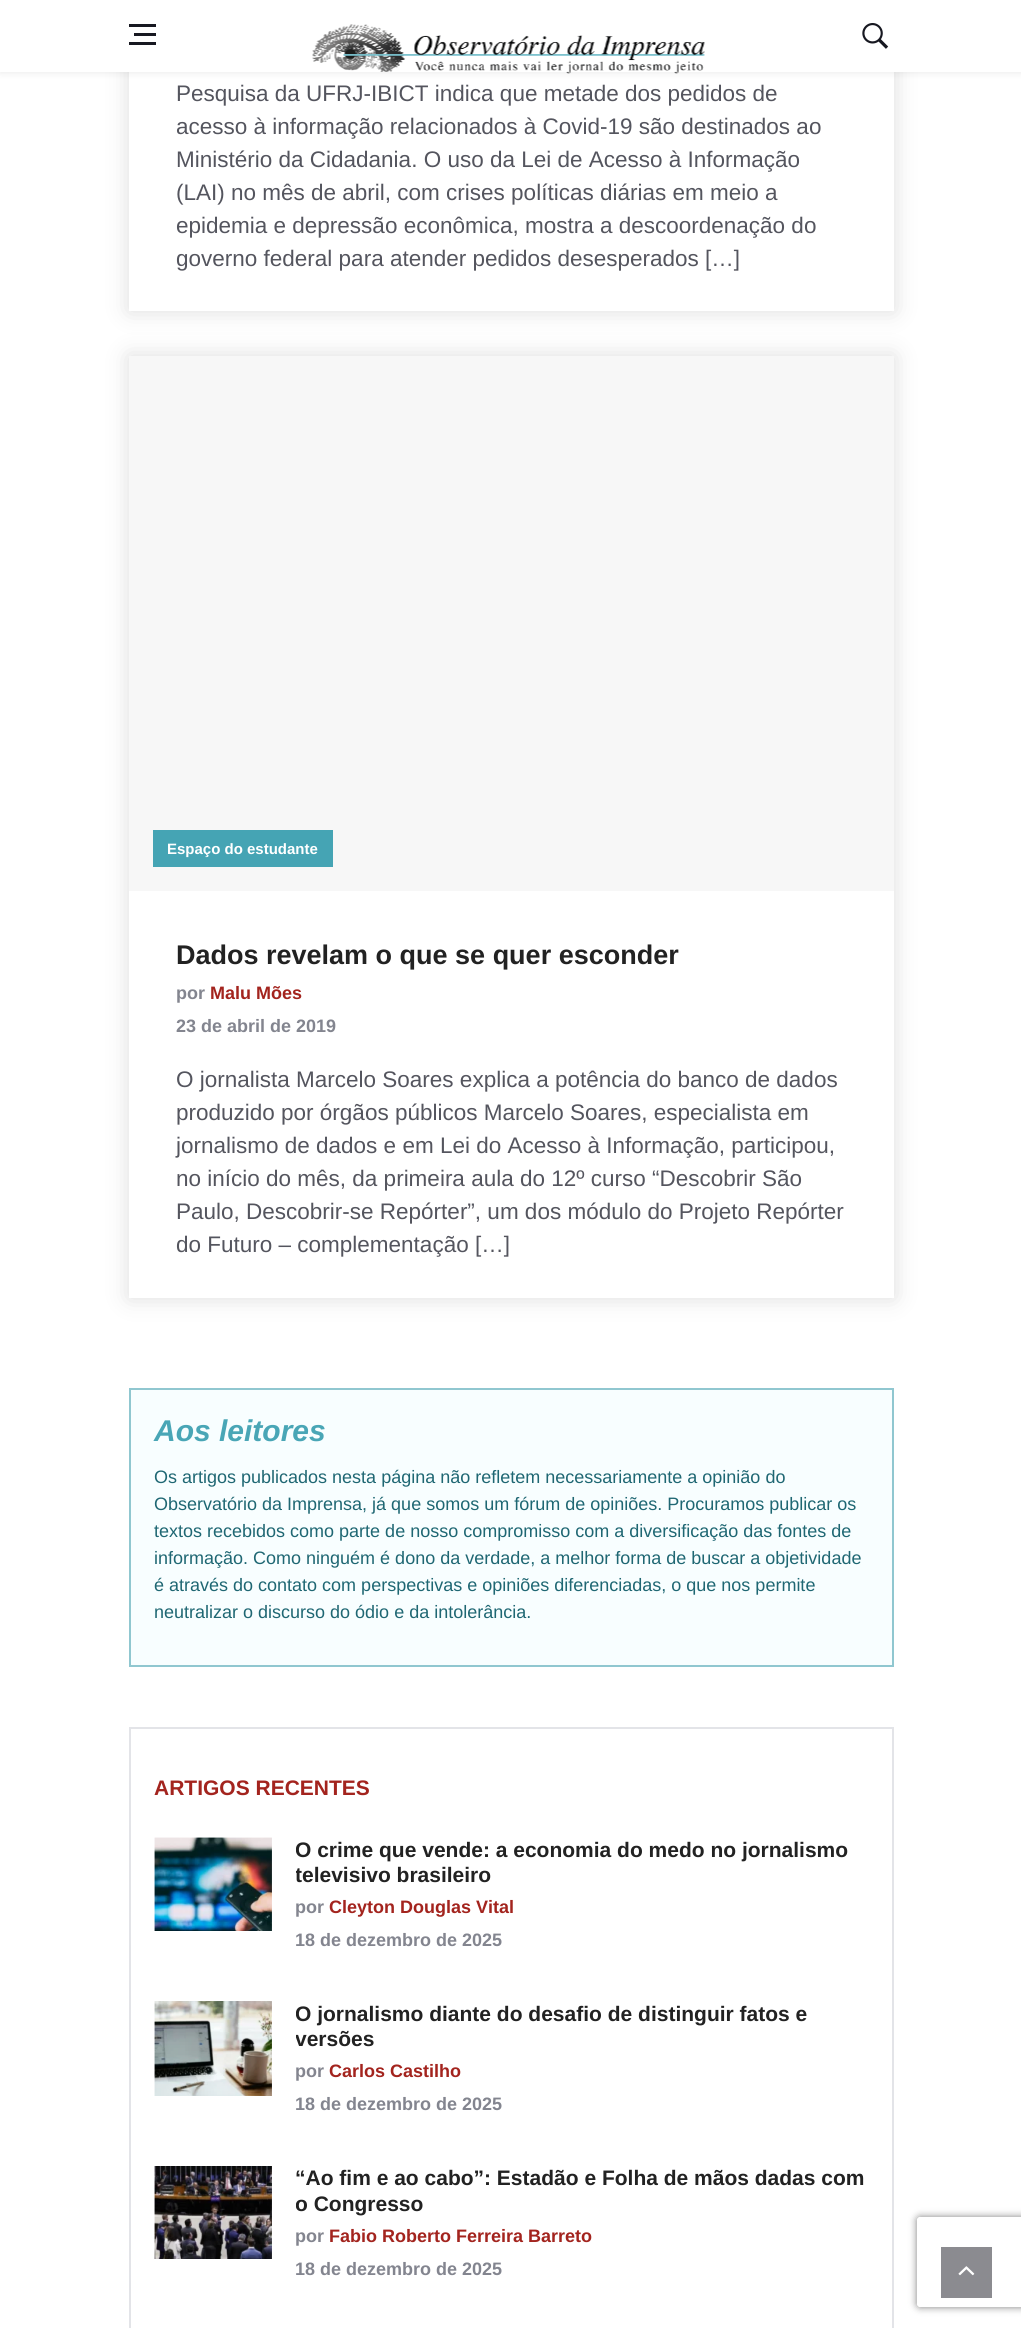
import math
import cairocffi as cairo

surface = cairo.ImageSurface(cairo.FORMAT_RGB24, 1021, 2328)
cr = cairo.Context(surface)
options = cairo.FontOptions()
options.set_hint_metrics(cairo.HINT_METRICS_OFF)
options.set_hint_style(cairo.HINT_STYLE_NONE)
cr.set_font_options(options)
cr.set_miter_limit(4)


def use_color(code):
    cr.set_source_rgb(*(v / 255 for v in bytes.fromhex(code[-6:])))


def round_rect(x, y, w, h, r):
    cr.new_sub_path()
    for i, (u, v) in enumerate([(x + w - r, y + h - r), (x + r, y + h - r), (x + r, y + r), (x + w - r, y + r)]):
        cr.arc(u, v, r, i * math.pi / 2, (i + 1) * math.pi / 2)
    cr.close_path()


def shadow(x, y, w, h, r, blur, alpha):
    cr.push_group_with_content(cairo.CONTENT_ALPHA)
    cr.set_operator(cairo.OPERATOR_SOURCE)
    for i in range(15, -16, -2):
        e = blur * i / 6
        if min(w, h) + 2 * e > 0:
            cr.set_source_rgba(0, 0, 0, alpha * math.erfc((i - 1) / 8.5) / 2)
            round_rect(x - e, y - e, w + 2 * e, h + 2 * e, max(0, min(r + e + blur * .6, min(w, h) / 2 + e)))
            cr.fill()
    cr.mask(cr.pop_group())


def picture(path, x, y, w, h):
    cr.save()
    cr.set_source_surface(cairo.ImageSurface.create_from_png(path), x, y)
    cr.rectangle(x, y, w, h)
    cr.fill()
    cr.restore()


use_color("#ffffff")
cr.paint()
use_color("#dddddd")
shadow(129, -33, 765, 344, 0, 11, 1)
use_color("#ffffff")
cr.rectangle(129, 72, 765, 239)
cr.fill()
use_color("#000000")
shadow(0, 0, 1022, 72, 0, 4, 0.1)
use_color("#ffffff")
cr.rectangle(0, 0, 1021, 72)
cr.fill()
use_color("#171821")
cr.rectangle(134, 33, 22, 3)
cr.fill()
cr.rectangle(129, 24, 27, 3)
cr.fill()
cr.rectangle(129, 42, 27, 3)
cr.fill()
picture("img1.png", 312, 24, 393, 50)
picture("img2.png", 862, 23, 27, 26)
cr.select_font_face("Liberation Sans")
cr.set_font_size(22.5)
use_color("#54555e")
cr.move_to(176, 101)
cr.show_text("Pesquisa da UFRJ-IBICT indica que metade dos pedidos de")
cr.move_to(176, 134)
cr.show_text("acesso à informação relacionados à Covid-19 são destinados ao")
cr.move_to(176, 167)
cr.show_text("Ministério da Cidadania. O uso da Lei de Acesso à Informação")
cr.move_to(176, 200)
cr.show_text("(LAI) no mês de abril, com crises políticas diárias em meio a")
cr.move_to(176, 233)
cr.show_text("epidemia e depressão econômica, mostra a descoordenação do")
cr.move_to(176, 266)
cr.show_text("governo federal para atender pedidos desesperados […]")
use_color("#dddddd")
shadow(129, 356, 765, 942, 0, 11, 1)
use_color("#ffffff")
cr.rectangle(129, 891, 765, 407)
cr.fill()
use_color("#f7f7f7")
cr.rectangle(129, 356, 765, 535)
cr.fill()
use_color("#45a4b4")
cr.rectangle(153, 830, 180, 37)
cr.fill()
cr.select_font_face("Liberation Sans", cairo.FONT_SLANT_NORMAL, cairo.FONT_WEIGHT_BOLD)
cr.set_font_size(15)
use_color("#ffffff")
cr.move_to(167, 854)
cr.show_text("Espaço do estudante")
cr.set_font_size(27)
use_color("#222222")
cr.move_to(176, 964)
cr.show_text("Dados revelam o que se quer esconder")
cr.set_font_size(18)
use_color("#83858f")
cr.move_to(176, 999)
cr.show_text("por")
use_color("#a3241e")
cr.move_to(210, 999)
cr.show_text("Malu Mões")
use_color("#83858f")
cr.move_to(176, 1032)
cr.show_text("23 de abril de 2019")
cr.select_font_face("Liberation Sans")
cr.set_font_size(22.5)
use_color("#54555e")
cr.move_to(176, 1087)
cr.show_text("O jornalista Marcelo Soares explica a potência do banco de dados")
cr.move_to(176, 1120)
cr.show_text("produzido por órgãos públicos Marcelo Soares, especialista em")
cr.move_to(176, 1153)
cr.show_text("jornalismo de dados e em Lei do Acesso à Informação, participou,")
cr.move_to(176, 1186)
cr.show_text("no início do mês, da primeira aula do 12º curso “Descobrir São")
cr.move_to(176, 1219)
cr.show_text("Paulo, Descobrir-se Repórter”, um dos módulo do Projeto Repórter")
cr.move_to(176, 1252)
cr.show_text("do Futuro – complementação […]")
use_color("#f8feff")
cr.rectangle(130, 1389, 763, 277)
cr.fill_preserve()
use_color("#90c7d0")
cr.stroke()
cr.select_font_face("Liberation Sans", cairo.FONT_SLANT_ITALIC, cairo.FONT_WEIGHT_BOLD)
cr.set_font_size(30)
use_color("#49a6b6")
cr.move_to(154, 1441)
cr.show_text("Aos leitores")
cr.select_font_face("Liberation Sans")
cr.set_font_size(18)
use_color("#1f6773")
cr.move_to(154, 1483)
cr.show_text("Os artigos publicados nesta página não refletem necessariamente a opinião do")
cr.move_to(154, 1510)
cr.show_text("Observatório da Imprensa, já que somos um fórum de opiniões. Procuramos publicar os")
cr.move_to(154, 1537)
cr.show_text("textos recebidos como parte de nosso compromisso com a diversificação das fontes de")
cr.move_to(154, 1564)
cr.show_text("informação. Como ninguém é dono da verdade, a melhor forma de buscar a objetividade")
cr.move_to(154, 1591)
cr.show_text("é através do contato com perspectivas e opiniões diferenciadas, o que nos permite")
cr.move_to(154, 1618)
cr.show_text("neutralizar o discurso do ódio e da intolerância.")
cr.rectangle(130, 1728, 763, 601)
use_color("#e3e4e8")
cr.stroke()
cr.select_font_face("Liberation Sans", cairo.FONT_SLANT_NORMAL, cairo.FONT_WEIGHT_BOLD)
cr.set_font_size(21)
use_color("#a3241e")
cr.move_to(154, 1795)
cr.show_text("ARTIGOS RECENTES")
picture("img3.png", 154, 1837, 118, 94)
cr.save()
cr.rectangle(296, 1838, 573, 115)
cr.clip()
use_color("#222222")
cr.move_to(295, 1857)
cr.show_text("O crime que vende: a economia do medo no jornalismo")
cr.move_to(295, 1882)
cr.show_text("televisivo brasileiro")
cr.restore()
cr.set_font_size(18)
use_color("#83858f")
cr.move_to(295, 1913)
cr.show_text("por")
use_color("#a3241e")
cr.move_to(329, 1913)
cr.show_text("Cleyton Douglas Vital")
use_color("#83858f")
cr.move_to(295, 1946)
cr.show_text("18 de dezembro de 2025")
picture("img4.png", 154, 2001, 118, 95)
cr.save()
cr.rectangle(296, 2001, 573, 117)
cr.clip()
cr.set_font_size(21)
use_color("#222222")
cr.move_to(295, 2021)
cr.show_text("O jornalismo diante do desafio de distinguir fatos e")
cr.move_to(295, 2046)
cr.show_text("versões")
cr.restore()
cr.move_to(295, 2077)
cr.show_text("por")
use_color("#a3241e")
cr.move_to(329, 2077)
cr.show_text("Carlos Castilho")
use_color("#83858f")
cr.move_to(295, 2110)
cr.show_text("18 de dezembro de 2025")
picture("img5.png", 154, 2166, 118, 93)
cr.set_font_size(21)
use_color("#222222")
cr.move_to(295, 2185)
cr.show_text("“Ao fim e ao cabo”: Estadão e Folha de mãos dadas com")
cr.save()
cr.rectangle(296, 2166, 573, 117)
cr.clip()
cr.move_to(295, 2211)
cr.show_text("o Congresso")
cr.restore()
cr.set_font_size(18)
use_color("#83858f")
cr.move_to(295, 2242)
cr.show_text("por")
use_color("#a3241e")
cr.move_to(329, 2242)
cr.show_text("Fabio Roberto Ferreira Barreto")
use_color("#83858f")
cr.move_to(295, 2275)
cr.show_text("18 de dezembro de 2025")
cr.save()
cr.set_fill_rule(cairo.FILL_RULE_EVEN_ODD)
cr.new_path()
cr.move_to(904, 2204)
cr.line_to(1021, 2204)
cr.line_to(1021, 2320)
cr.line_to(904, 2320)
cr.close_path()
cr.move_to(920, 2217)
cr.line_to(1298, 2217)
cr.curve_to(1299.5, 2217, 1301, 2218.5, 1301, 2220)
cr.line_to(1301, 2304)
cr.curve_to(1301, 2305.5, 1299.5, 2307, 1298, 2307)
cr.line_to(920, 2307)
cr.curve_to(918.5, 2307, 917, 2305.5, 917, 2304)
cr.line_to(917, 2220)
cr.curve_to(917, 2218.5, 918.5, 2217, 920, 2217)
cr.close_path()
cr.clip()
use_color("#808080")
shadow(917, 2217, 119, 90, 3, 4, 1)
cr.restore()
use_color("#8b8b90")
cr.rectangle(941, 2247, 51, 51)
cr.fill()
picture("img6.png", 958, 2266, 17, 10)
surface.write_to_png("result.png")
